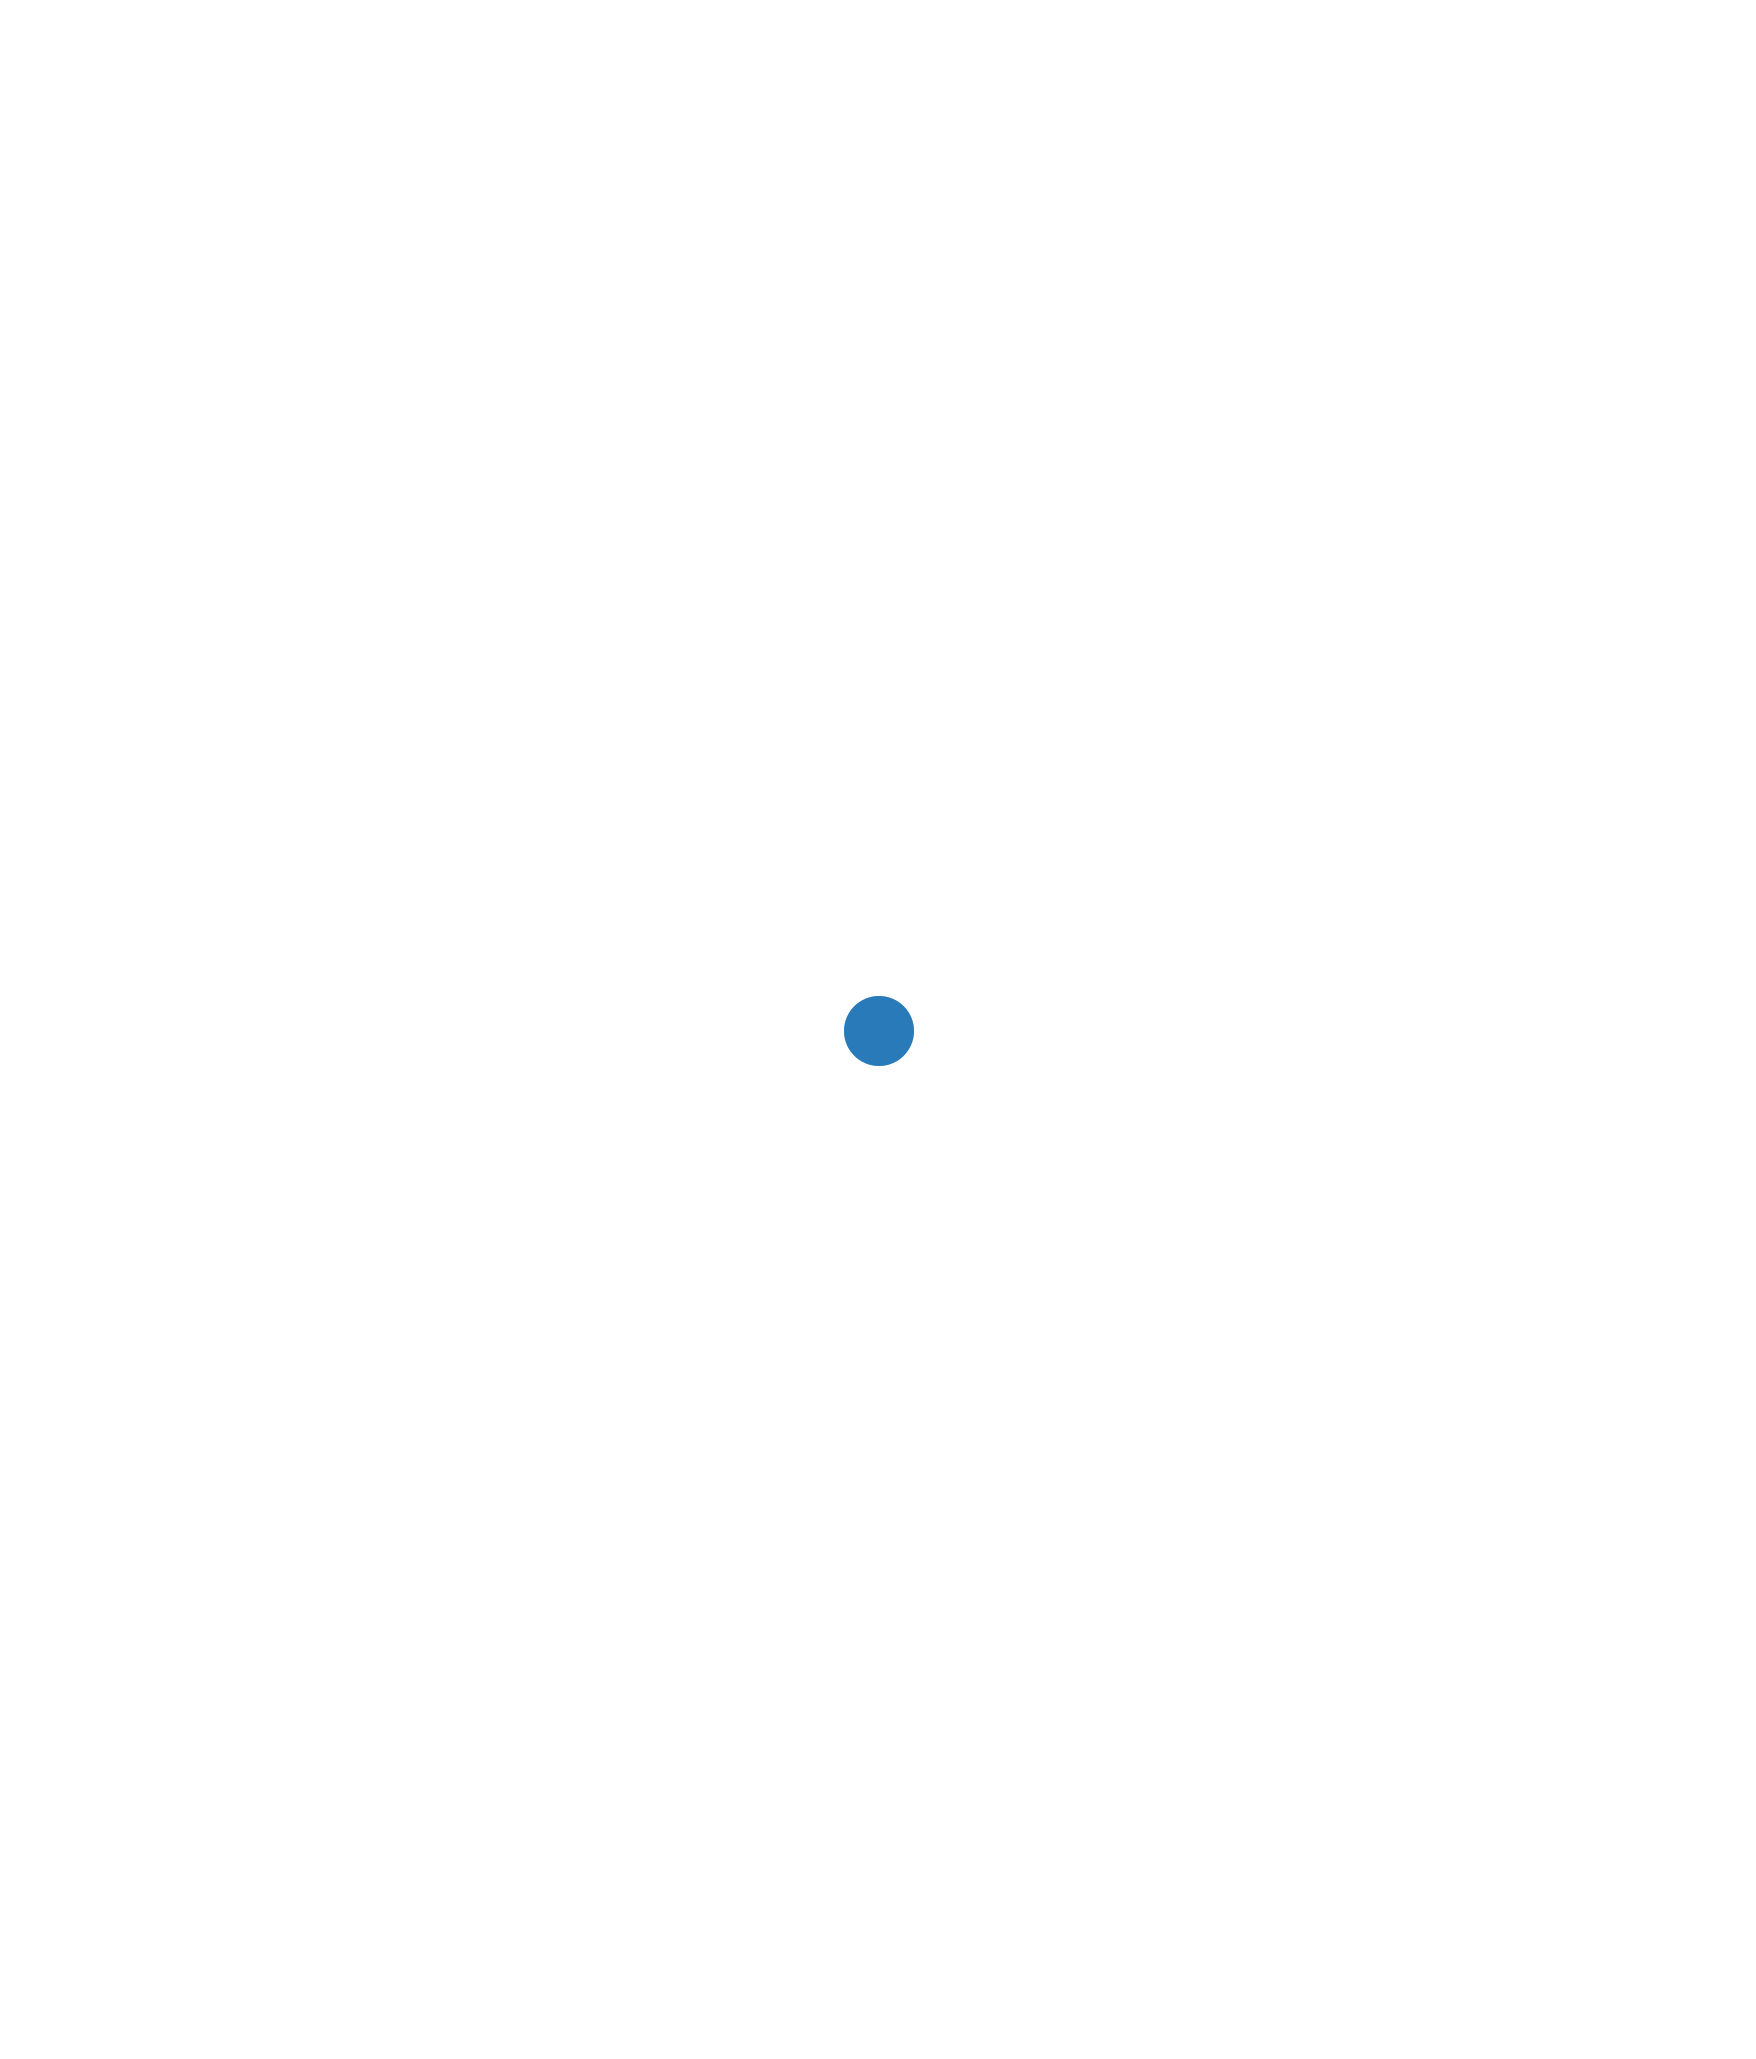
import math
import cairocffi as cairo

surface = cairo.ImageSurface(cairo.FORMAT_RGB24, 1756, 2059)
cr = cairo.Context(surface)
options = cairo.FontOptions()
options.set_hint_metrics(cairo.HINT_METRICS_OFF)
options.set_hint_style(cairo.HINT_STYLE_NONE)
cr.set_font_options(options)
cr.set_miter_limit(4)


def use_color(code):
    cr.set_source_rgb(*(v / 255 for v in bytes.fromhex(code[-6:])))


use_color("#ffffff")
cr.paint()
use_color("#66a1cd")
cr.arc(879, 1031, 35, 0, 2 * math.pi)
cr.fill()
cr.set_source_rgba(0, 0.384, 0.675, 0.6)
cr.arc(879, 1031, 35, 0, 2 * math.pi)
cr.fill()
surface.write_to_png("result.png")
